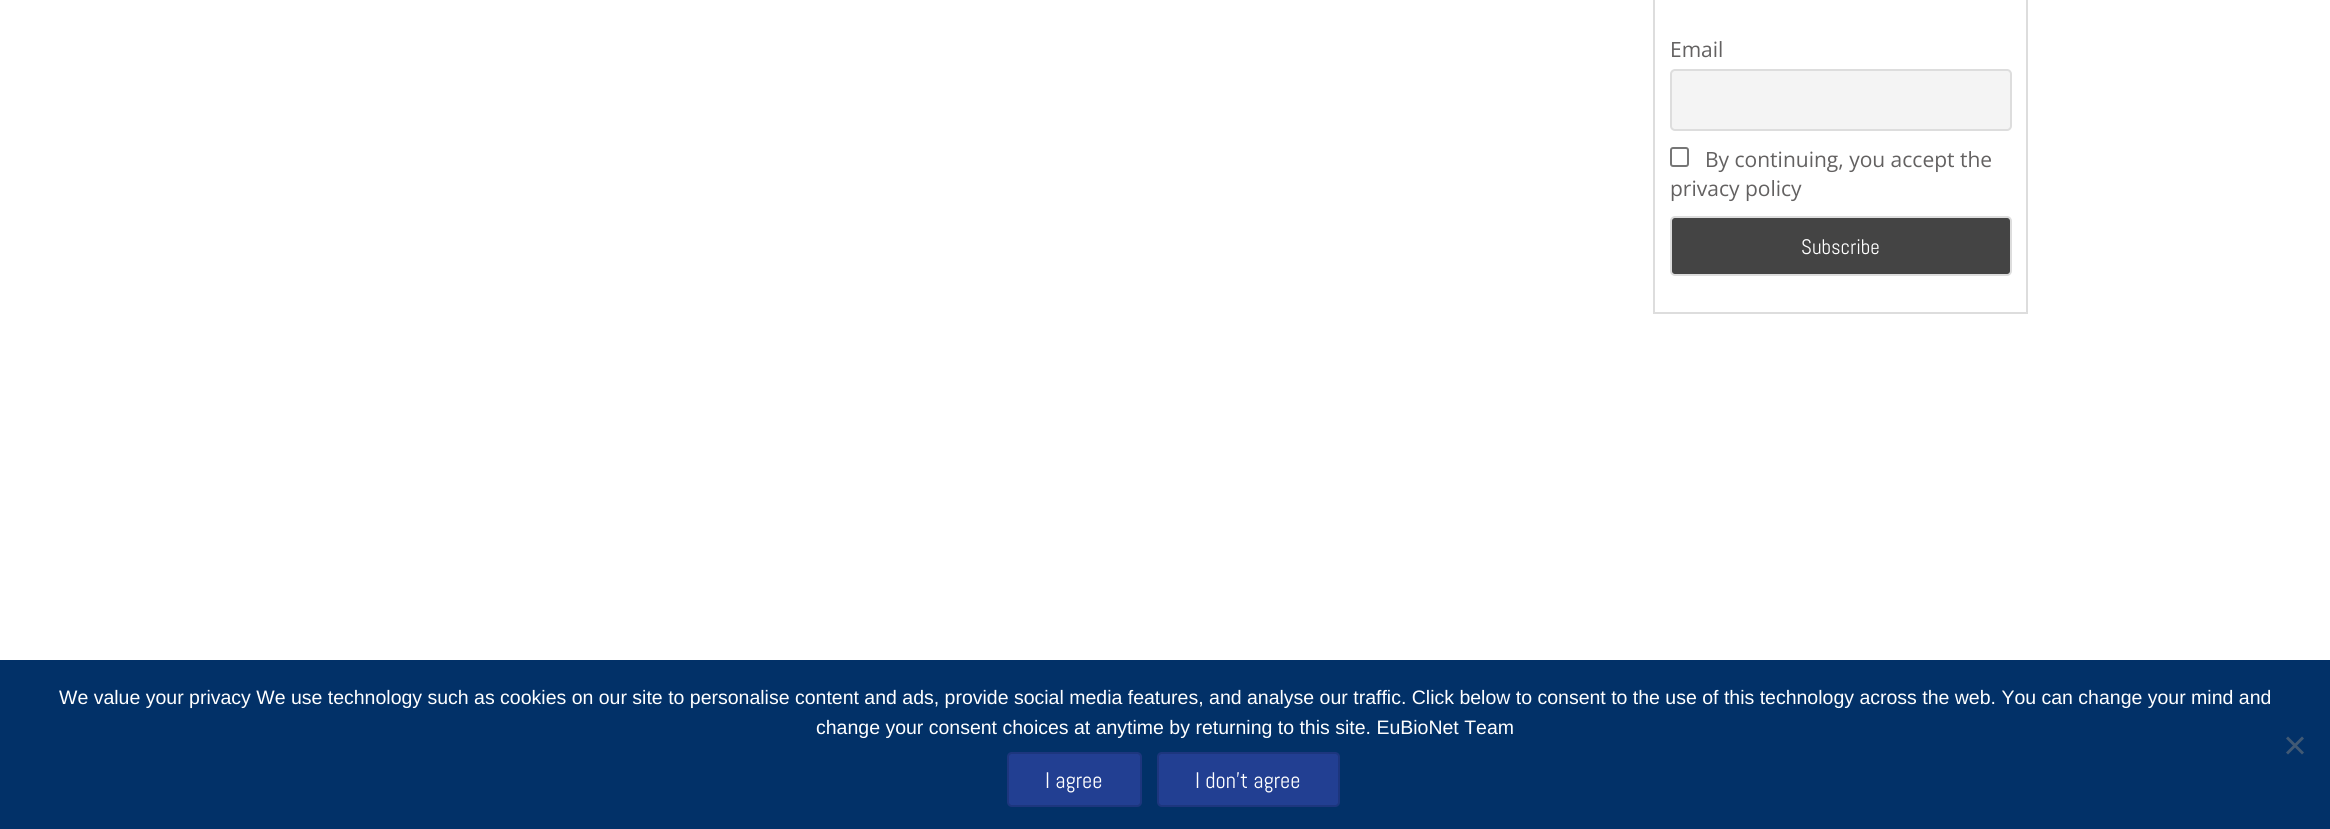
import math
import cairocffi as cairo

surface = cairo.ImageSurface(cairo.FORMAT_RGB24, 2330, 829)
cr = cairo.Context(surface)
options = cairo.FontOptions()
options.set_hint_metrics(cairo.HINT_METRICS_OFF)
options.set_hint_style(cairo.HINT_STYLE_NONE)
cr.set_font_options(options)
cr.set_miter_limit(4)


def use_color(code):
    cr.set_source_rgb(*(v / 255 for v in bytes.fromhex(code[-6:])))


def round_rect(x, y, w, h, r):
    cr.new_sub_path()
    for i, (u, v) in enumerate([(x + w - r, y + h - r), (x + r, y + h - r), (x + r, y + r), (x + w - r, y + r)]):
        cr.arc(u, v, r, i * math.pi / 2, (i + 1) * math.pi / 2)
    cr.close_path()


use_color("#ffffff")
cr.paint()
cr.rectangle(1654, -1, 373, 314)
use_color("#dddddd")
cr.stroke()
cr.select_font_face("Open Sans")
cr.set_font_size(21)
use_color("#636161")
cr.move_to(1670, 57)
cr.show_text("Email")
use_color("#f4f4f4")
round_rect(1671, 70, 340, 60, 4)
cr.fill_preserve()
use_color("#dddddd")
cr.stroke()
round_rect(1671, 148, 17, 18, 2)
use_color("#767676")
cr.stroke()
use_color("#636161")
cr.move_to(1705, 167)
cr.show_text("By continuing, you accept the")
cr.move_to(1670, 196)
cr.show_text("privacy policy")
use_color("#444444")
round_rect(1671, 217, 340, 58, 4)
cr.fill_preserve()
use_color("#dddddd")
cr.stroke()
cr.select_font_face("Abel")
use_color("#ffffff")
cr.move_to(1801, 254)
cr.show_text("Subscribe")
use_color("#023168")
cr.rectangle(0, 660, 2330, 169)
cr.fill()
cr.select_font_face("Liberation Sans")
cr.set_font_size(19.5)
use_color("#ffffff")
cr.move_to(59, 704)
cr.show_text("We value your privacy We use technology such as cookies on our site to personalise content and ads, provide social media features, and analyse our traffic. Click below to consent to the use of this technology across the web. You can change your mind and")
cr.move_to(816, 734)
cr.show_text("change your consent choices at anytime by returning to this site. EuBioNet Team")
use_color("#415974")
cr.new_path()
cr.move_to(2302, 736.5)
cr.line_to(2304, 738.5)
cr.line_to(2288, 754.5)
cr.line_to(2286, 752.5)
cr.close_path()
cr.fill()
cr.new_path()
cr.move_to(2286, 738.5)
cr.line_to(2288, 736.5)
cr.line_to(2304, 752.5)
cr.line_to(2302, 754.5)
cr.close_path()
cr.fill()
use_color("#223f92")
round_rect(1007, 752, 135, 55, 5)
cr.fill()
round_rect(1008, 753, 133, 53, 4)
cr.set_source_rgba(0, 0, 0, 0.14)
cr.stroke()
cr.select_font_face("Abel")
cr.set_font_size(22.5)
use_color("#ffffff")
cr.move_to(1045, 788)
cr.show_text("I agree")
use_color("#223f92")
round_rect(1157, 752, 183, 55, 5)
cr.fill()
round_rect(1158, 753, 181, 53, 4)
cr.set_source_rgba(0, 0, 0, 0.14)
cr.stroke()
use_color("#ffffff")
cr.move_to(1195, 788)
cr.show_text("I don't agree")
surface.write_to_png("result.png")
